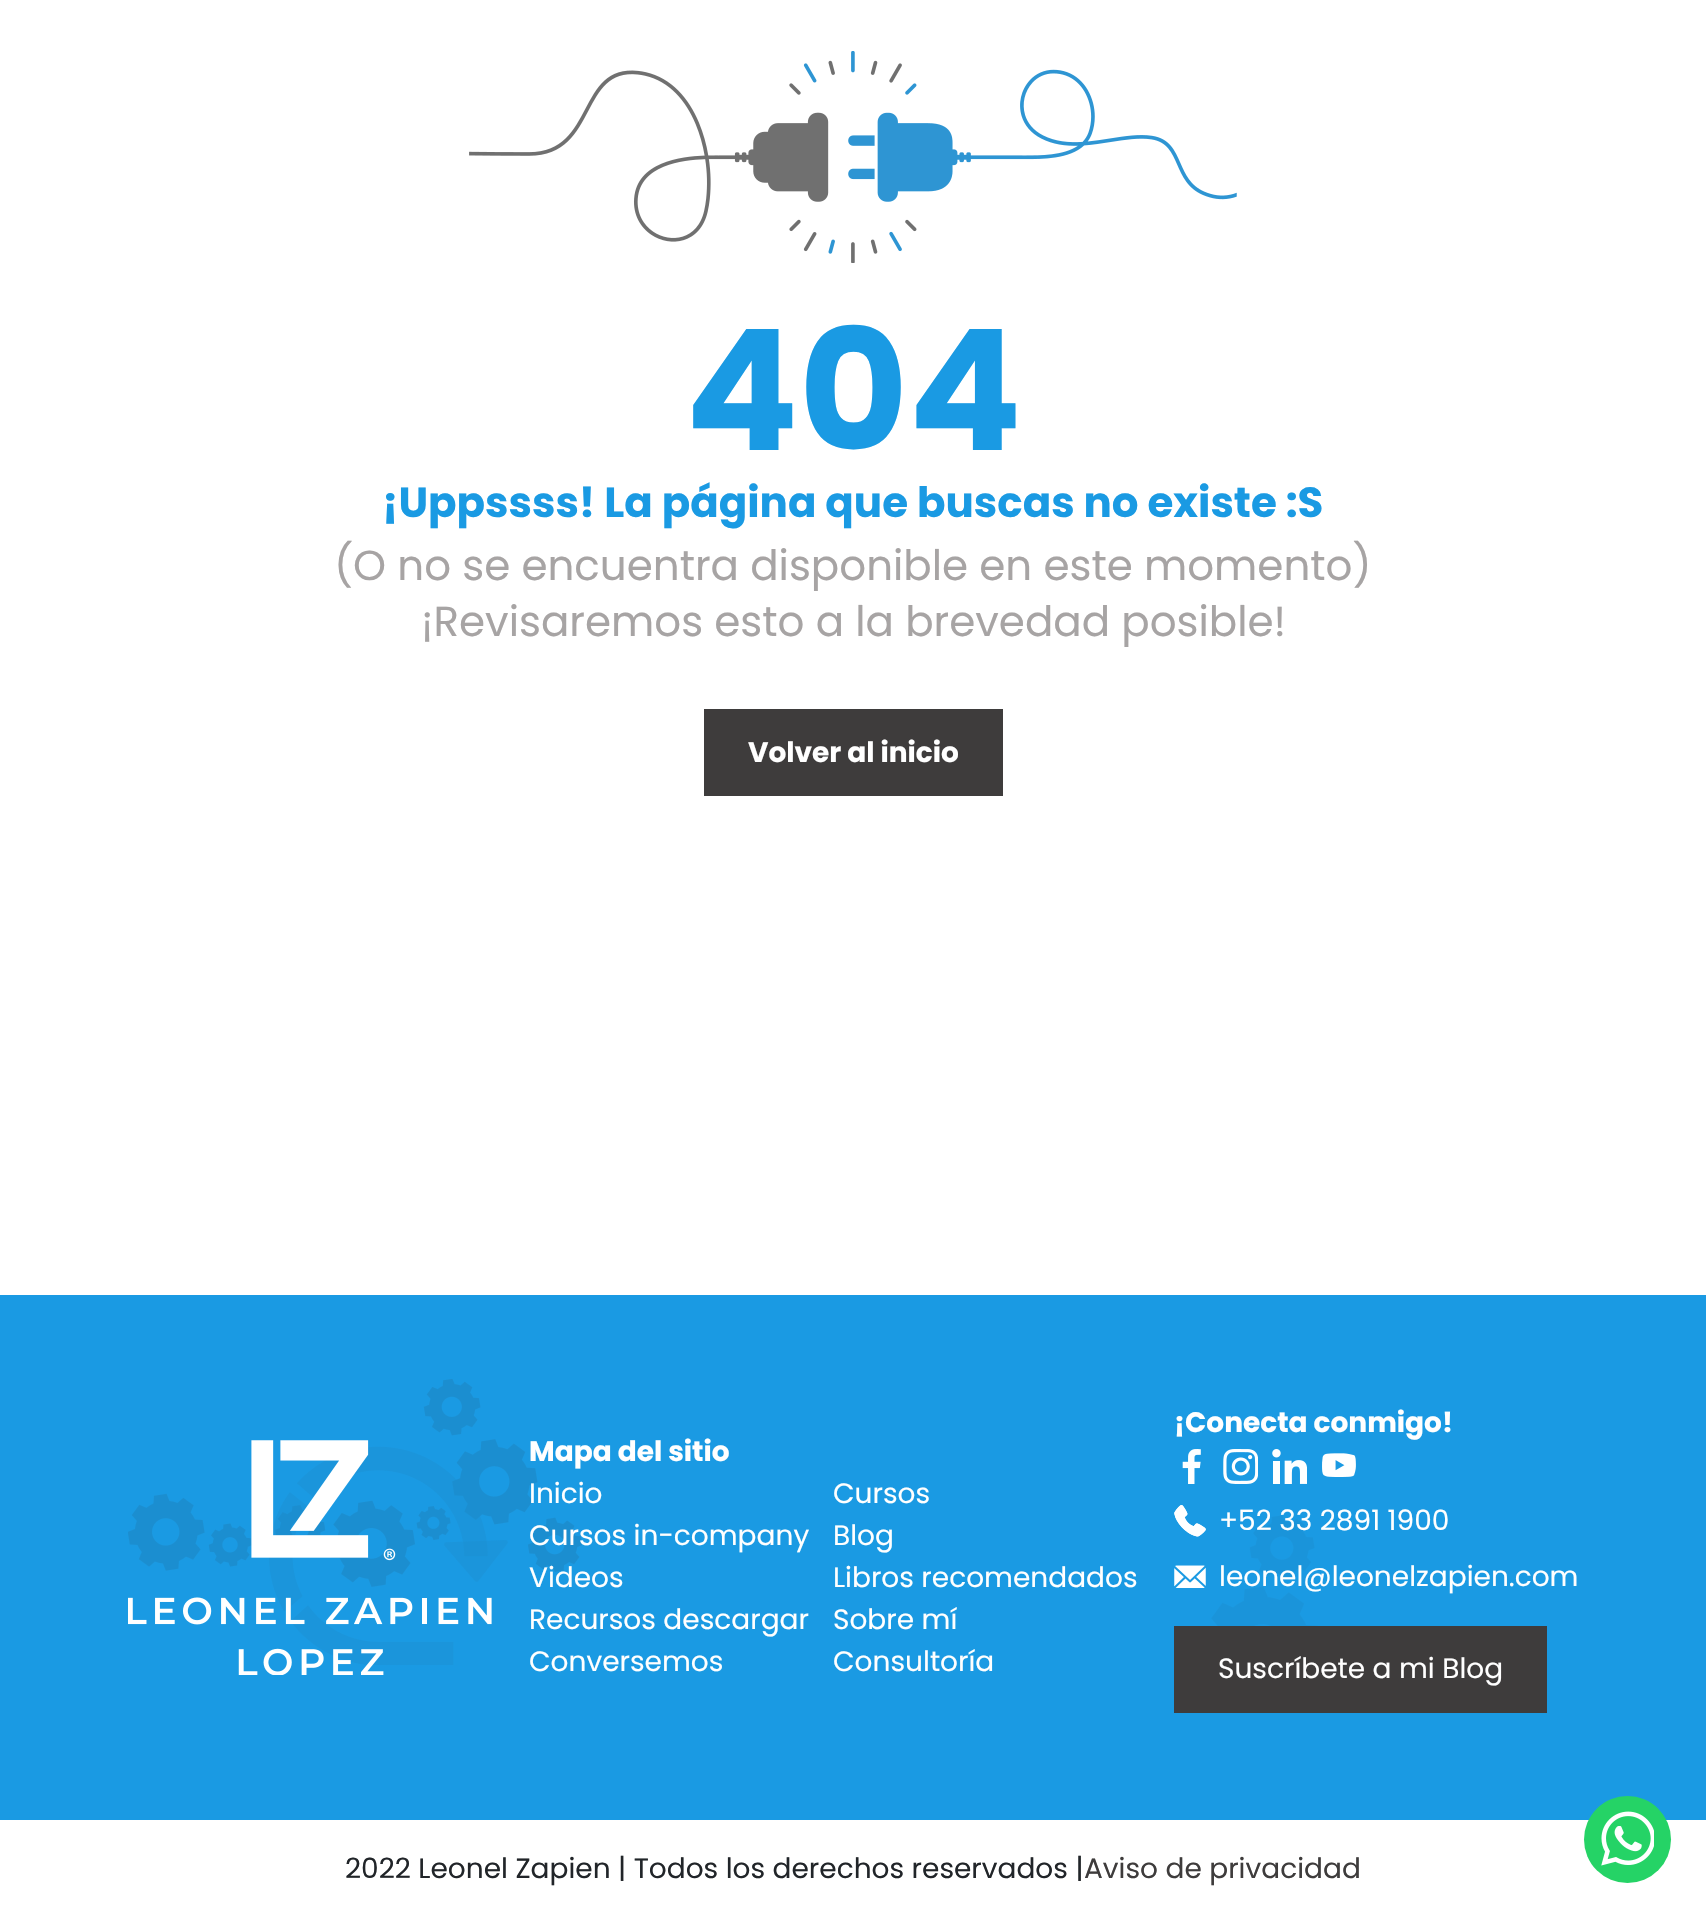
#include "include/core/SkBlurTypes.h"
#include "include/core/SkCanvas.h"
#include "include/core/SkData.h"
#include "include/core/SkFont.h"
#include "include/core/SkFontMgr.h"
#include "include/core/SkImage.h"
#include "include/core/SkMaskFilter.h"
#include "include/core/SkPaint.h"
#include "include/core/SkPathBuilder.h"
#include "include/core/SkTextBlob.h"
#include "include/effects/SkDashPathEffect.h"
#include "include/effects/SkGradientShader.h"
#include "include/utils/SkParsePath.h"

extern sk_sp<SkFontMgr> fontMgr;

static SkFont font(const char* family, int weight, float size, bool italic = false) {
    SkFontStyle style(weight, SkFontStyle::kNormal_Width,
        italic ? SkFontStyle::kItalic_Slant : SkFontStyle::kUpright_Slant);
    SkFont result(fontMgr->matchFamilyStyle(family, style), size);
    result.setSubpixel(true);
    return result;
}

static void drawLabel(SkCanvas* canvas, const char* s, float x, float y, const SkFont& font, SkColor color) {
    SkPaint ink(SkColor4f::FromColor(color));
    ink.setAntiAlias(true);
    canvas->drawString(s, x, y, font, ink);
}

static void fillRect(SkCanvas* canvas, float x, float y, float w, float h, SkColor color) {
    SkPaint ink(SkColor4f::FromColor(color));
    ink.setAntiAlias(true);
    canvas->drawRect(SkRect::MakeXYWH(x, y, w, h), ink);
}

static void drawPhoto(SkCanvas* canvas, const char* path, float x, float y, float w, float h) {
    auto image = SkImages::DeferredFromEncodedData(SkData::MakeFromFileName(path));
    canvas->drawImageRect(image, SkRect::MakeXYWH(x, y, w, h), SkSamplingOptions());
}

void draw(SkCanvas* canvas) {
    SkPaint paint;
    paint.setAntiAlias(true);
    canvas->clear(0xFFFFFFFF);
    drawPhoto(canvas, "assets/img1.png", 469, 51, 768, 212);
    SkFont font1 = font("Poppins", 700, 168);
    drawLabel(canvas, "404", 685, 450, font1, 0xFF1A9AE3);
    SkFont font2 = font("Poppins", 700, 42);
    drawLabel(canvas, "¡Uppssss! La página que buscas no existe :S", 382, 517, font2, 0xFF1A9AE3);
    SkFont font3 = font("Poppins", 400, 42);
    drawLabel(canvas, "(O no se encuentra disponible en este momento)", 334, 580, font3, 0xFFA7A4A4);
    drawLabel(canvas, "¡Revisaremos esto a la brevedad posible!", 421, 636, font3, 0xFFA7A4A4);
    fillRect(canvas, 704, 709, 299, 87, 0xFF3E3C3C);
    SkFont font4 = font("Poppins", 700, 28);
    drawLabel(canvas, "Volver al inicio", 748, 762, font4, 0xFFFFFFFF);
    fillRect(canvas, 0, 1295, 1706, 525, 0xFF1A9AE3);
    drawPhoto(canvas, "assets/img2.png", 128, 1379, 1190, 286);
    drawLabel(canvas, "¡Conecta conmigo!", 1174, 1432, font4, 0xFFFFFFFF);
    drawPhoto(canvas, "assets/img3.png", 1182, 1449, 19, 35);
    drawPhoto(canvas, "assets/img4.png", 1223, 1449, 35, 35);
    drawPhoto(canvas, "assets/img5.png", 1272, 1449, 35, 35);
    drawPhoto(canvas, "assets/img6.png", 1322, 1453, 34, 24);
    drawPhoto(canvas, "assets/img7.png", 1174, 1505, 32, 32);
    SkFont font5 = font("Poppins", 400, 28);
    drawLabel(canvas, "+52 33 2891 1900", 1219, 1530, font5, 0xFFFFFFFF);
    drawPhoto(canvas, "assets/img8.png", 1174, 1565, 32, 23);
    drawLabel(canvas, "leonel@leonelzapien.com", 1219, 1586, font5, 0xFFFFFFFF);
    fillRect(canvas, 1174, 1626, 373, 87, 0xFF3E3C3C);
    drawLabel(canvas, "Suscríbete a mi Blog", 1218, 1678, font5, 0xFFFFFFFF);
    drawPhoto(canvas, "assets/img9.png", 128, 1440, 364, 235);
    drawLabel(canvas, "Mapa del sitio", 529, 1461, font4, 0xFFFFFFFF);
    drawLabel(canvas, "Inicio", 529, 1503, font5, 0xFFFFFFFF);
    drawLabel(canvas, "Cursos", 833, 1503, font5, 0xFFFFFFFF);
    drawLabel(canvas, "Cursos in-company", 529, 1545, font5, 0xFFFFFFFF);
    drawLabel(canvas, "Blog", 833, 1545, font5, 0xFFFFFFFF);
    drawLabel(canvas, "Videos", 529, 1587, font5, 0xFFFFFFFF);
    drawLabel(canvas, "Libros recomendados", 833, 1587, font5, 0xFFFFFFFF);
    drawLabel(canvas, "Recursos descargar", 529, 1629, font5, 0xFFFFFFFF);
    drawLabel(canvas, "Sobre mí", 833, 1629, font5, 0xFFFFFFFF);
    drawLabel(canvas, "Conversemos", 529, 1671, font5, 0xFFFFFFFF);
    drawLabel(canvas, "Consultoría", 833, 1671, font5, 0xFFFFFFFF);
    drawLabel(canvas, "2022 Leonel Zapien | Todos los derechos reservados |", 345, 1878, font5, 0xFF212529);
    drawLabel(canvas, "Aviso de privacidad", 1084, 1878, font5, 0xFF3E3C3C);
    paint.setColor(0xFF25D366);
    canvas->drawCircle(1627.5f, 1839.5f, 43.5f, paint);
    drawPhoto(canvas, "assets/img10.png", 1601, 1811, 53, 55);
}
